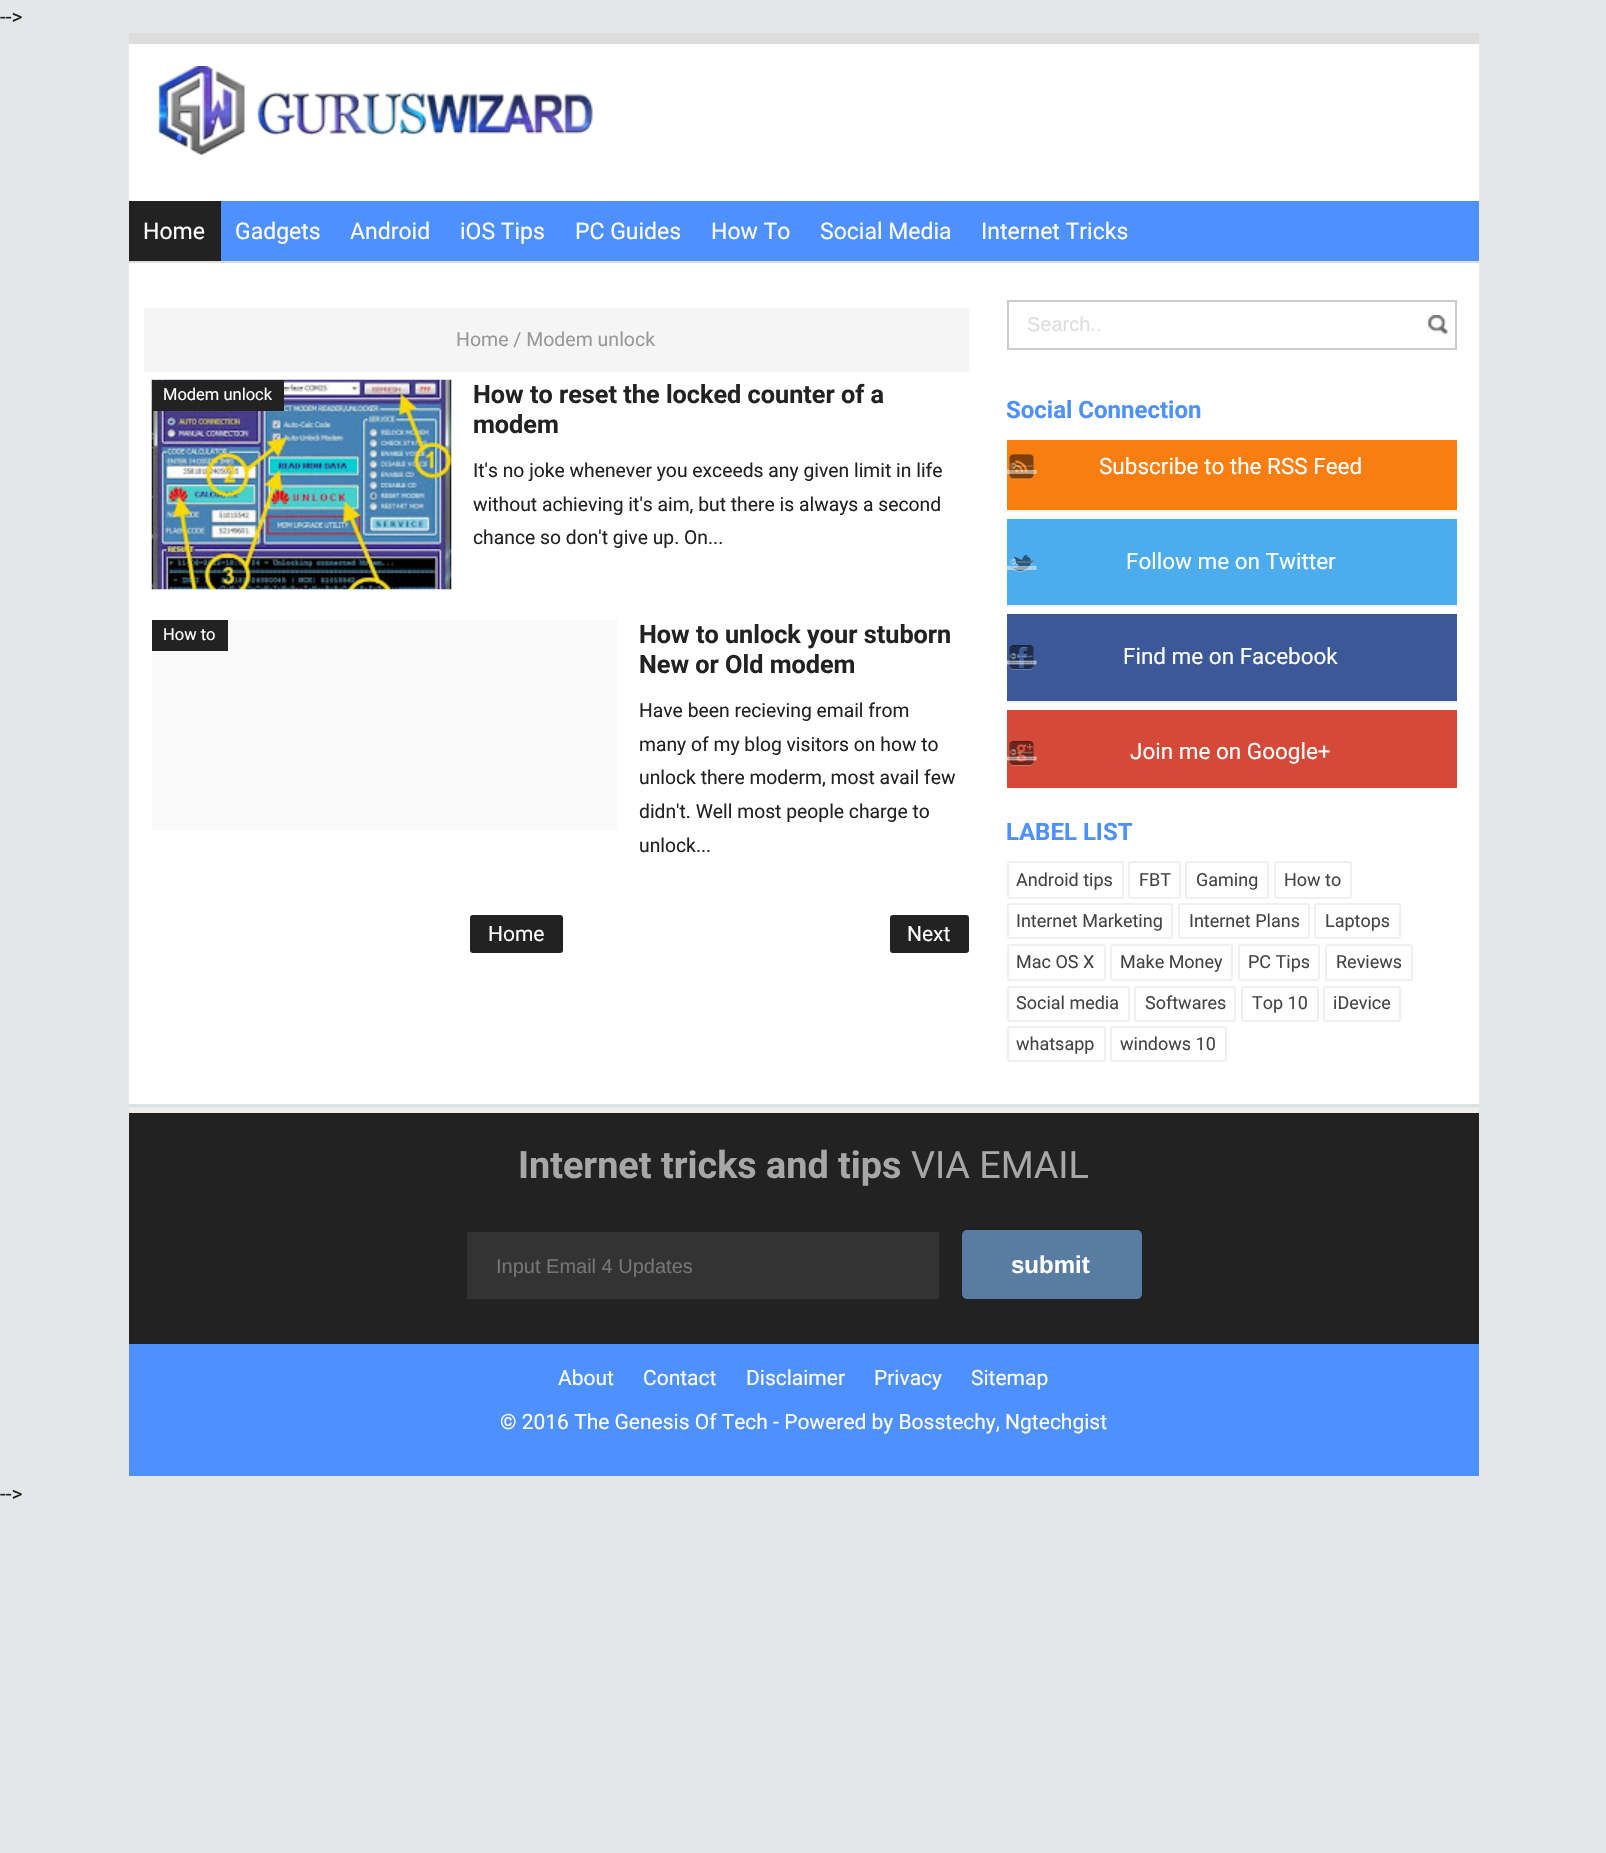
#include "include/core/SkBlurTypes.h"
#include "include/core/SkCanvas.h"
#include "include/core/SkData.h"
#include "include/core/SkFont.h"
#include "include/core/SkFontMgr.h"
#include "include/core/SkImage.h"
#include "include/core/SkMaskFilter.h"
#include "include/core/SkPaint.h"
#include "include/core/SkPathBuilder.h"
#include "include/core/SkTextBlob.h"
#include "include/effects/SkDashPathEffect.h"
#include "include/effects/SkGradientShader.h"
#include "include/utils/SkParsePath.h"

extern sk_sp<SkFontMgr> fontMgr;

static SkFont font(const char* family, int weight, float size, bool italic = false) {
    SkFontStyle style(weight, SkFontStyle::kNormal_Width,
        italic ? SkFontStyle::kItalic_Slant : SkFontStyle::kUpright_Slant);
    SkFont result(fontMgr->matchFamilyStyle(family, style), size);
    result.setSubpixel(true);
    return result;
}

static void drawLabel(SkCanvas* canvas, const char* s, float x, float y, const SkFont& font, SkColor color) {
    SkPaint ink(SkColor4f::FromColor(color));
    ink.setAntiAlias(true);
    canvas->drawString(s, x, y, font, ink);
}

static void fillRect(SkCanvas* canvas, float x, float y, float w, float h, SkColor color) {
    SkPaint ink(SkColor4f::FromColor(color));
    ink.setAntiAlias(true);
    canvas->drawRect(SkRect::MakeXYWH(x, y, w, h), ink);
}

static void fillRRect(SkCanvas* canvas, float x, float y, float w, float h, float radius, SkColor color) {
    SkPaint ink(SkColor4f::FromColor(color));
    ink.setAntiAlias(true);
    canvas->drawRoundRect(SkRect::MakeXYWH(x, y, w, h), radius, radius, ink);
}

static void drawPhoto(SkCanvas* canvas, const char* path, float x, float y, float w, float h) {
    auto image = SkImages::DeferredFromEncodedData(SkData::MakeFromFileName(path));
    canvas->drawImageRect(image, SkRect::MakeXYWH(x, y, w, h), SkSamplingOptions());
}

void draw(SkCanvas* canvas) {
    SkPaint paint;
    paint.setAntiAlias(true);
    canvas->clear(0xFFE3E7E8);
    SkFont font1 = font("Roboto", 400, 21);
    drawLabel(canvas, "-->", 0, 24, font1, 0xFF222222);
    fillRect(canvas, 129, 44, 1350, 1060, 0xFFFFFFFF);
    fillRect(canvas, 129, 33, 1350, 11, 0xFFDDDDDD);
    drawPhoto(canvas, "assets/img1.png", 158, 66, 435, 89);
    fillRect(canvas, 221, 201, 1258, 60, 0xFF4D90FE);
    fillRect(canvas, 129, 201, 92, 60, 0xFF222222);
    SkFont font2 = font("Roboto", 400, 23);
    drawLabel(canvas, "Home", 143, 239, font2, 0xFFFFFFFF);
    drawLabel(canvas, "Gadgets", 235, 239, font2, 0xFFFFFFFF);
    drawLabel(canvas, "Android", 350, 239, font2, 0xFFFFFFFF);
    drawLabel(canvas, "iOS Tips", 460, 239, font2, 0xFFFFFFFF);
    drawLabel(canvas, "PC Guides", 575, 239, font2, 0xFFFFFFFF);
    drawLabel(canvas, "How To", 711, 239, font2, 0xFFFFFFFF);
    drawLabel(canvas, "Social Media", 820, 239, font2, 0xFFFFFFFF);
    drawLabel(canvas, "Internet Tricks", 981, 239, font2, 0xFFFFFFFF);
    fillRect(canvas, 129, 1104, 1350, 2, 0xFFD9E4E6);
    fillRect(canvas, 129, 261, 1350, 2, 0xFFDDDDDD);
    fillRect(canvas, 144, 308, 825, 64, 0xFFF5F5F5);
    SkFont font3 = font("Roboto", 400, 19.5f);
    drawLabel(canvas, "Home / Modem unlock", 456, 346, font3, 0xFF999999);
    fillRect(canvas, 152, 380, 300, 210, 0xFFF9F9F9);
    drawPhoto(canvas, "assets/img2.png", 151, 379, 301, 211);
    SkFont font4 = font("Roboto", 700, 25.25f);
    drawLabel(canvas, "How to reset the locked counter of a", 473, 403, font4, 0xFF222222);
    drawLabel(canvas, "modem", 473, 433, font4, 0xFF222222);
    fillRect(canvas, 152, 380, 132, 31, 0xFF222222);
    SkFont font5 = font("Roboto", 400, 16.5f);
    drawLabel(canvas, "Modem unlock", 163, 400, font5, 0xFFFFFFFF);
    SkFont font6 = font("Roboto", 400, 19.3f);
    drawLabel(canvas, "It's no joke whenever you exceeds any given limit in life", 473, 477, font6, 0xFF222222);
    drawLabel(canvas, "without achieving it's aim, but there is always a second", 473, 511, font6, 0xFF222222);
    drawLabel(canvas, "chance so don't give up. On...", 473, 544, font6, 0xFF222222);
    fillRect(canvas, 152, 620, 465, 210, 0xFFF9F9F9);
    drawLabel(canvas, "How to unlock your stuborn", 639, 643, font4, 0xFF222222);
    drawLabel(canvas, "New or Old modem", 639, 673, font4, 0xFF222222);
    fillRect(canvas, 152, 620, 76, 31, 0xFF222222);
    drawLabel(canvas, "How to", 163, 640, font5, 0xFFFFFFFF);
    drawLabel(canvas, "Have been recieving email from", 639, 717, font6, 0xFF222222);
    drawLabel(canvas, "many of my blog visitors on how to", 639, 751, font6, 0xFF222222);
    drawLabel(canvas, "unlock there moderm, most avail few", 639, 784, font6, 0xFF222222);
    drawLabel(canvas, "didn't. Well most people charge to", 639, 818, font6, 0xFF222222);
    drawLabel(canvas, "unlock...", 639, 852, font6, 0xFF222222);
    fillRRect(canvas, 470, 915, 93, 38, 3, 0xFF222222);
    drawLabel(canvas, "Home", 488, 941, font1, 0xFFFFFFFF);
    fillRRect(canvas, 890, 915, 79, 38, 3, 0xFF222222);
    drawLabel(canvas, "Next", 907, 941, font1, 0xFFFFFFFF);
    paint.setStroke(true);
    paint.setStrokeWidth(2);
    paint.setColor(0xFFCCCCCC);
    canvas->drawRect(SkRect::MakeXYWH(1008, 301, 448, 48), paint);
    SkFont font7 = font("Liberation Sans", 400, 20);
    drawLabel(canvas, "Search..", 1027, 331, font7, 0xFFDDDDDD);
    drawPhoto(canvas, "assets/img3.png", 1426, 315, 22, 20);
    canvas->save();
    canvas->clipRect(SkRect::MakeXYWH(1007, 380, 450, 60));
    SkFont font8 = font("Roboto", 700, 24);
    drawLabel(canvas, "Social Connection", 1006, 418, font8, 0xFF4D90FE);
    canvas->restore();
    fillRect(canvas, 1007, 510, 450, 2, 0xFFF0F0F0);
    fillRect(canvas, 1007, 440, 450, 70, 0xFFF87E12);
    drawPhoto(canvas, "assets/img4.png", 1007, 454, 30, 26);
    SkFont font9 = font("Roboto", 400, 22.5f);
    drawLabel(canvas, "Subscribe to the RSS Feed", 1099, 474, font9, 0xFFFFFFFF);
    fillRect(canvas, 1007, 605, 450, 2, 0xFFF0F0F0);
    fillRect(canvas, 1007, 519, 450, 86, 0xFF4CACEE);
    drawPhoto(canvas, "assets/img5.png", 1007, 555, 30, 17);
    drawLabel(canvas, "Follow me on Twitter", 1126, 569, font9, 0xFFFFFFFF);
    fillRect(canvas, 1007, 701, 450, 2, 0xFFF0F0F0);
    fillRect(canvas, 1007, 614, 450, 87, 0xFF3B5998);
    drawPhoto(canvas, "assets/img6.png", 1007, 645, 30, 25);
    drawLabel(canvas, "Find me on Facebook", 1123, 664, font9, 0xFFFFFFFF);
    fillRect(canvas, 1007, 710, 450, 78, 0xFFD44937);
    drawPhoto(canvas, "assets/img7.png", 1007, 741, 30, 25);
    drawLabel(canvas, "Join me on Google+", 1130, 759, font9, 0xFFFFFFFF);
    drawLabel(canvas, "LABEL LIST", 1006, 840, font8, 0xFF4D90FE);
    paint.setColor(0xFFF0F0F0);
    canvas->drawRoundRect(SkRect::MakeXYWH(1008, 862, 115, 36), 2, 2, paint);
    SkFont font10 = font("Roboto", 400, 18);
    drawLabel(canvas, "Android tips", 1016, 886, font10, 0xFF444444);
    canvas->drawRoundRect(SkRect::MakeXYWH(1129, 862, 51, 36), 2, 2, paint);
    drawLabel(canvas, "FBT", 1139, 886, font10, 0xFF444444);
    canvas->drawRoundRect(SkRect::MakeXYWH(1186, 862, 82, 36), 2, 2, paint);
    drawLabel(canvas, "Gaming", 1196, 886, font10, 0xFF444444);
    canvas->drawRoundRect(SkRect::MakeXYWH(1275, 862, 76, 36), 2, 2, paint);
    drawLabel(canvas, "How to", 1284, 886, font10, 0xFF444444);
    canvas->drawRoundRect(SkRect::MakeXYWH(1008, 904, 164, 34), 2, 2, paint);
    drawLabel(canvas, "Internet Marketing", 1016, 927, font10, 0xFF444444);
    canvas->drawRoundRect(SkRect::MakeXYWH(1179, 904, 130, 34), 2, 2, paint);
    drawLabel(canvas, "Internet Plans", 1189, 927, font10, 0xFF444444);
    canvas->drawRoundRect(SkRect::MakeXYWH(1315, 904, 85, 34), 2, 2, paint);
    drawLabel(canvas, "Laptops", 1325, 927, font10, 0xFF444444);
    canvas->drawRoundRect(SkRect::MakeXYWH(1008, 945, 97, 35), 2, 2, paint);
    drawLabel(canvas, "Mac OS X", 1016, 968, font10, 0xFF444444);
    canvas->drawRoundRect(SkRect::MakeXYWH(1111, 945, 121, 35), 2, 2, paint);
    drawLabel(canvas, "Make Money", 1120, 968, font10, 0xFF444444);
    canvas->drawRoundRect(SkRect::MakeXYWH(1239, 945, 80, 35), 2, 2, paint);
    drawLabel(canvas, "PC Tips", 1248, 968, font10, 0xFF444444);
    canvas->drawRoundRect(SkRect::MakeXYWH(1326, 945, 86, 35), 2, 2, paint);
    drawLabel(canvas, "Reviews", 1336, 968, font10, 0xFF444444);
    canvas->drawRoundRect(SkRect::MakeXYWH(1008, 987, 121, 34), 2, 2, paint);
    drawLabel(canvas, "Social media", 1016, 1009, font10, 0xFF444444);
    canvas->drawRoundRect(SkRect::MakeXYWH(1135, 987, 100, 34), 2, 2, paint);
    drawLabel(canvas, "Softwares", 1145, 1009, font10, 0xFF444444);
    canvas->drawRoundRect(SkRect::MakeXYWH(1242, 987, 76, 34), 2, 2, paint);
    drawLabel(canvas, "Top 10", 1252, 1009, font10, 0xFF444444);
    canvas->drawRoundRect(SkRect::MakeXYWH(1324, 987, 76, 34), 2, 2, paint);
    drawLabel(canvas, "iDevice", 1333, 1009, font10, 0xFF444444);
    canvas->drawRoundRect(SkRect::MakeXYWH(1008, 1027, 97, 34), 2, 2, paint);
    drawLabel(canvas, "whatsapp", 1016, 1050, font10, 0xFF444444);
    canvas->drawRoundRect(SkRect::MakeXYWH(1111, 1027, 115, 34), 2, 2, paint);
    drawLabel(canvas, "windows 10", 1120, 1050, font10, 0xFF444444);
    fillRect(canvas, 129, 1106, 1350, 1, 0xFFDDDDDD);
    fillRect(canvas, 129, 1113, 1350, 231, 0xFF222222);
    fillRect(canvas, 129, 1107, 1350, 6, 0xFFEEEEEE);
    SkFont font11 = font("Roboto", 700, 37.75f);
    drawLabel(canvas, "Internet tricks and tips", 518, 1178, font11, 0xFFA7A7A7);
    SkFont font12 = font("Roboto", 400, 37.75f);
    drawLabel(canvas, "VIA EMAIL", 911, 1178, font12, 0xFFA7A7A7);
    fillRect(canvas, 467, 1232, 472, 67, 0xFF333333);
    canvas->save();
    canvas->clipRect(SkRect::MakeXYWH(497, 1254, 412, 23));
    drawLabel(canvas, "Input Email 4 Updates", 496, 1273, font7, 0xFF757575);
    canvas->restore();
    fillRRect(canvas, 962, 1230, 180, 69, 5, 0xFF587CA2);
    SkFont font13 = font("Liberation Sans", 700, 24);
    drawLabel(canvas, "submit", 1011, 1273, font13, 0xFFFFFFFF);
    fillRect(canvas, 129, 1344, 1350, 132, 0xFF4D90FE);
    drawLabel(canvas, "About", 558, 1385, font1, 0xFFFFFFFF);
    drawLabel(canvas, "Contact", 643, 1385, font1, 0xFFFFFFFF);
    drawLabel(canvas, "Disclaimer", 746, 1385, font1, 0xFFFFFFFF);
    drawLabel(canvas, "Privacy", 874, 1385, font1, 0xFFFFFFFF);
    drawLabel(canvas, "Sitemap", 971, 1385, font1, 0xFFFFFFFF);
    drawLabel(canvas, "© 2016 The Genesis Of Tech - Powered by Bosstechy, Ngtechgist", 500, 1429, font1, 0xFFFFFFFF);
    drawLabel(canvas, "-->", 0, 1501, font1, 0xFF222222);
}
